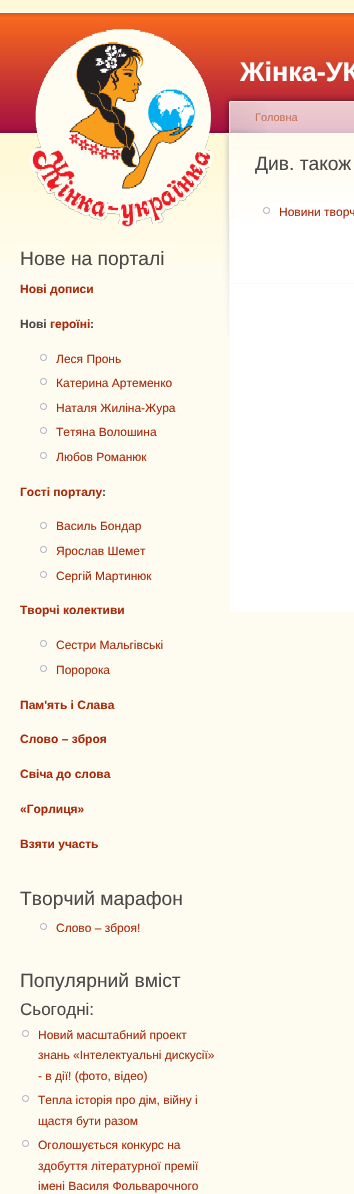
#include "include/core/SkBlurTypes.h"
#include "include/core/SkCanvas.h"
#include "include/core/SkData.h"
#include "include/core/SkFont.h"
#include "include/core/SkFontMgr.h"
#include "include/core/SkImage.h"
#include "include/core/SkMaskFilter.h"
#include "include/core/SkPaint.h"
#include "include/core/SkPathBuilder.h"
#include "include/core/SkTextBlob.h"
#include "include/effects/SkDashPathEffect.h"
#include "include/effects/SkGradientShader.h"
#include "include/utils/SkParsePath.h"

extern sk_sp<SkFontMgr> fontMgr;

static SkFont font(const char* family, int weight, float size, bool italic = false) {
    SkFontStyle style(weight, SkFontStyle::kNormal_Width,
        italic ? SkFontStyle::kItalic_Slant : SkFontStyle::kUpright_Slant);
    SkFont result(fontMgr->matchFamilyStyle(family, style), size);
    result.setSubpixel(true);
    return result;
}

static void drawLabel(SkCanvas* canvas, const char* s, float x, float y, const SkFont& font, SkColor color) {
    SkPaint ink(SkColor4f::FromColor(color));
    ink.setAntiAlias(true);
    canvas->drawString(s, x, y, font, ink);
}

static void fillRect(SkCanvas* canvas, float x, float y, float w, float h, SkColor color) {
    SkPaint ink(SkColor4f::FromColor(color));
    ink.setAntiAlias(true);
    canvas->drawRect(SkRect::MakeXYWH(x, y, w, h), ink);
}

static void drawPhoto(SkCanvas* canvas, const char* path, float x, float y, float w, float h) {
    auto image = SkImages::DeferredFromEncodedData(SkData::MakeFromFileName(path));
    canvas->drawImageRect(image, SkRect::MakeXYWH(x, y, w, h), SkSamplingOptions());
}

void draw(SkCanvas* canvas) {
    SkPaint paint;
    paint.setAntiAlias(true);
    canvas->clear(0xFFFEFCF1);
    fillRect(canvas, 0, 0, 354, 1, 0xFFFFFADD);
    fillRect(canvas, 0, 1, 354, 11, 0xFFFFF9D8);
    drawPhoto(canvas, "assets/img1.png", 0, 12, 354, 251);
    drawPhoto(canvas, "assets/img2.png", 29, 29, 185, 201);
    SkFont font1 = font("Liberation Sans", 700, 27);
    drawLabel(canvas, "Жінка-УК", 240, 81, font1, 0xFFFFFFFF);
    fillRect(canvas, 230, 204, 124, 408, 0xFFFFFFFF);
    drawPhoto(canvas, "assets/img3.png", 230, 92, 124, 112);
    drawPhoto(canvas, "assets/img4.png", 223, 96, 44, 241);
    SkFont font2 = font("Liberation Sans", 400, 11);
    drawLabel(canvas, "Головна", 255, 121, font2, 0xFFC17357);
    SkFont font3 = font("Liberation Sans", 400, 19.25f);
    drawLabel(canvas, "Див. також", 255, 170, font3, 0xFF494949);
    fillRect(canvas, 229, 283, 125, 1, 0xFFFCFAEC);
    drawPhoto(canvas, "assets/img5.png", 263, 207, 7, 7);
    SkFont font4 = font("Liberation Sans", 400, 12);
    drawLabel(canvas, "Новини творч", 279, 216, font4, 0xFFA9290A);
    drawLabel(canvas, "Нове на порталі", 20, 265, font3, 0xFF494949);
    SkFont font5 = font("Liberation Sans", 700, 12);
    drawLabel(canvas, "Нові дописи", 20, 293, font5, 0xFFA9290A);
    drawLabel(canvas, "Нові", 20, 328, font5, 0xFF494949);
    drawLabel(canvas, "героїні", 50, 328, font5, 0xFFA9290A);
    drawLabel(canvas, ":", 90, 328, font5, 0xFF494949);
    drawPhoto(canvas, "assets/img6.png", 40, 354, 7, 7);
    drawLabel(canvas, "Леся Пронь", 56, 363, font4, 0xFFA9290A);
    drawPhoto(canvas, "assets/img6.png", 40, 378, 7, 7);
    drawLabel(canvas, "Катерина Артеменко", 56, 387, font4, 0xFFA9290A);
    drawPhoto(canvas, "assets/img6.png", 40, 403, 7, 7);
    drawLabel(canvas, "Наталя Жиліна-Жура", 56, 412, font4, 0xFFA9290A);
    drawPhoto(canvas, "assets/img6.png", 40, 427, 7, 7);
    drawLabel(canvas, "Тетяна Волошина", 56, 436, font4, 0xFFA9290A);
    drawPhoto(canvas, "assets/img6.png", 40, 452, 7, 7);
    drawLabel(canvas, "Любов Романюк", 56, 461, font4, 0xFFA9290A);
    drawLabel(canvas, "Гості порталу", 20, 496, font5, 0xFFA9290A);
    drawLabel(canvas, ":", 102, 496, font5, 0xFF494949);
    drawPhoto(canvas, "assets/img6.png", 40, 522, 7, 7);
    drawLabel(canvas, "Василь Бондар", 56, 530, font4, 0xFFA9290A);
    drawPhoto(canvas, "assets/img6.png", 40, 546, 7, 7);
    drawLabel(canvas, "Ярослав Шемет", 56, 555, font4, 0xFFA9290A);
    drawPhoto(canvas, "assets/img6.png", 40, 571, 7, 7);
    drawLabel(canvas, "Сергій Мартинюк", 56, 580, font4, 0xFFA9290A);
    drawLabel(canvas, "Творчі колективи", 20, 614, font5, 0xFFA9290A);
    drawPhoto(canvas, "assets/img6.png", 40, 640, 7, 7);
    drawLabel(canvas, "Сестри Мальгівські", 56, 649, font4, 0xFFA9290A);
    drawPhoto(canvas, "assets/img6.png", 40, 665, 7, 7);
    drawLabel(canvas, "Поророка", 56, 674, font4, 0xFFA9290A);
    drawLabel(canvas, "Пам'ять і Слава", 20, 709, font5, 0xFFA9290A);
    drawLabel(canvas, "Слово – зброя", 20, 743, font5, 0xFFA9290A);
    drawLabel(canvas, "Свіча до слова", 20, 778, font5, 0xFFA9290A);
    drawLabel(canvas, "«Горлиця»", 20, 813, font5, 0xFFA9290A);
    drawLabel(canvas, "Взяти участь", 20, 848, font5, 0xFFA9290A);
    drawLabel(canvas, "Творчий марафон", 20, 905, font3, 0xFF494949);
    drawPhoto(canvas, "assets/img6.png", 40, 923, 7, 7);
    drawLabel(canvas, "Слово – зброя!", 56, 932, font4, 0xFFA9290A);
    drawLabel(canvas, "Популярний вміст", 20, 987, font3, 0xFF494949);
    SkFont font6 = font("Liberation Sans", 400, 17);
    drawLabel(canvas, "Сьогодні:", 20, 1015, font6, 0xFF494949);
    drawPhoto(canvas, "assets/img6.png", 22, 1030, 7, 7);
    drawLabel(canvas, "Новий масштабний проект", 38, 1039, font4, 0xFFA9290A);
    drawLabel(canvas, "знань «Інтелектуальні дискусії»", 38, 1059, font4, 0xFFA9290A);
    drawLabel(canvas, "- в дії! (фото, відео)", 38, 1080, font4, 0xFFA9290A);
    drawPhoto(canvas, "assets/img6.png", 22, 1095, 7, 7);
    drawLabel(canvas, "Тепла історія про дім, війну і", 38, 1104, font4, 0xFFA9290A);
    drawLabel(canvas, "щастя бути разом", 38, 1125, font4, 0xFFA9290A);
    drawPhoto(canvas, "assets/img6.png", 22, 1140, 7, 7);
    drawLabel(canvas, "Оголошується конкурс на", 38, 1149, font4, 0xFFA9290A);
    drawLabel(canvas, "здобуття літературної премії", 38, 1170, font4, 0xFFA9290A);
    drawLabel(canvas, "імені Василя Фольварочного", 38, 1190, font4, 0xFFA9290A);
}
